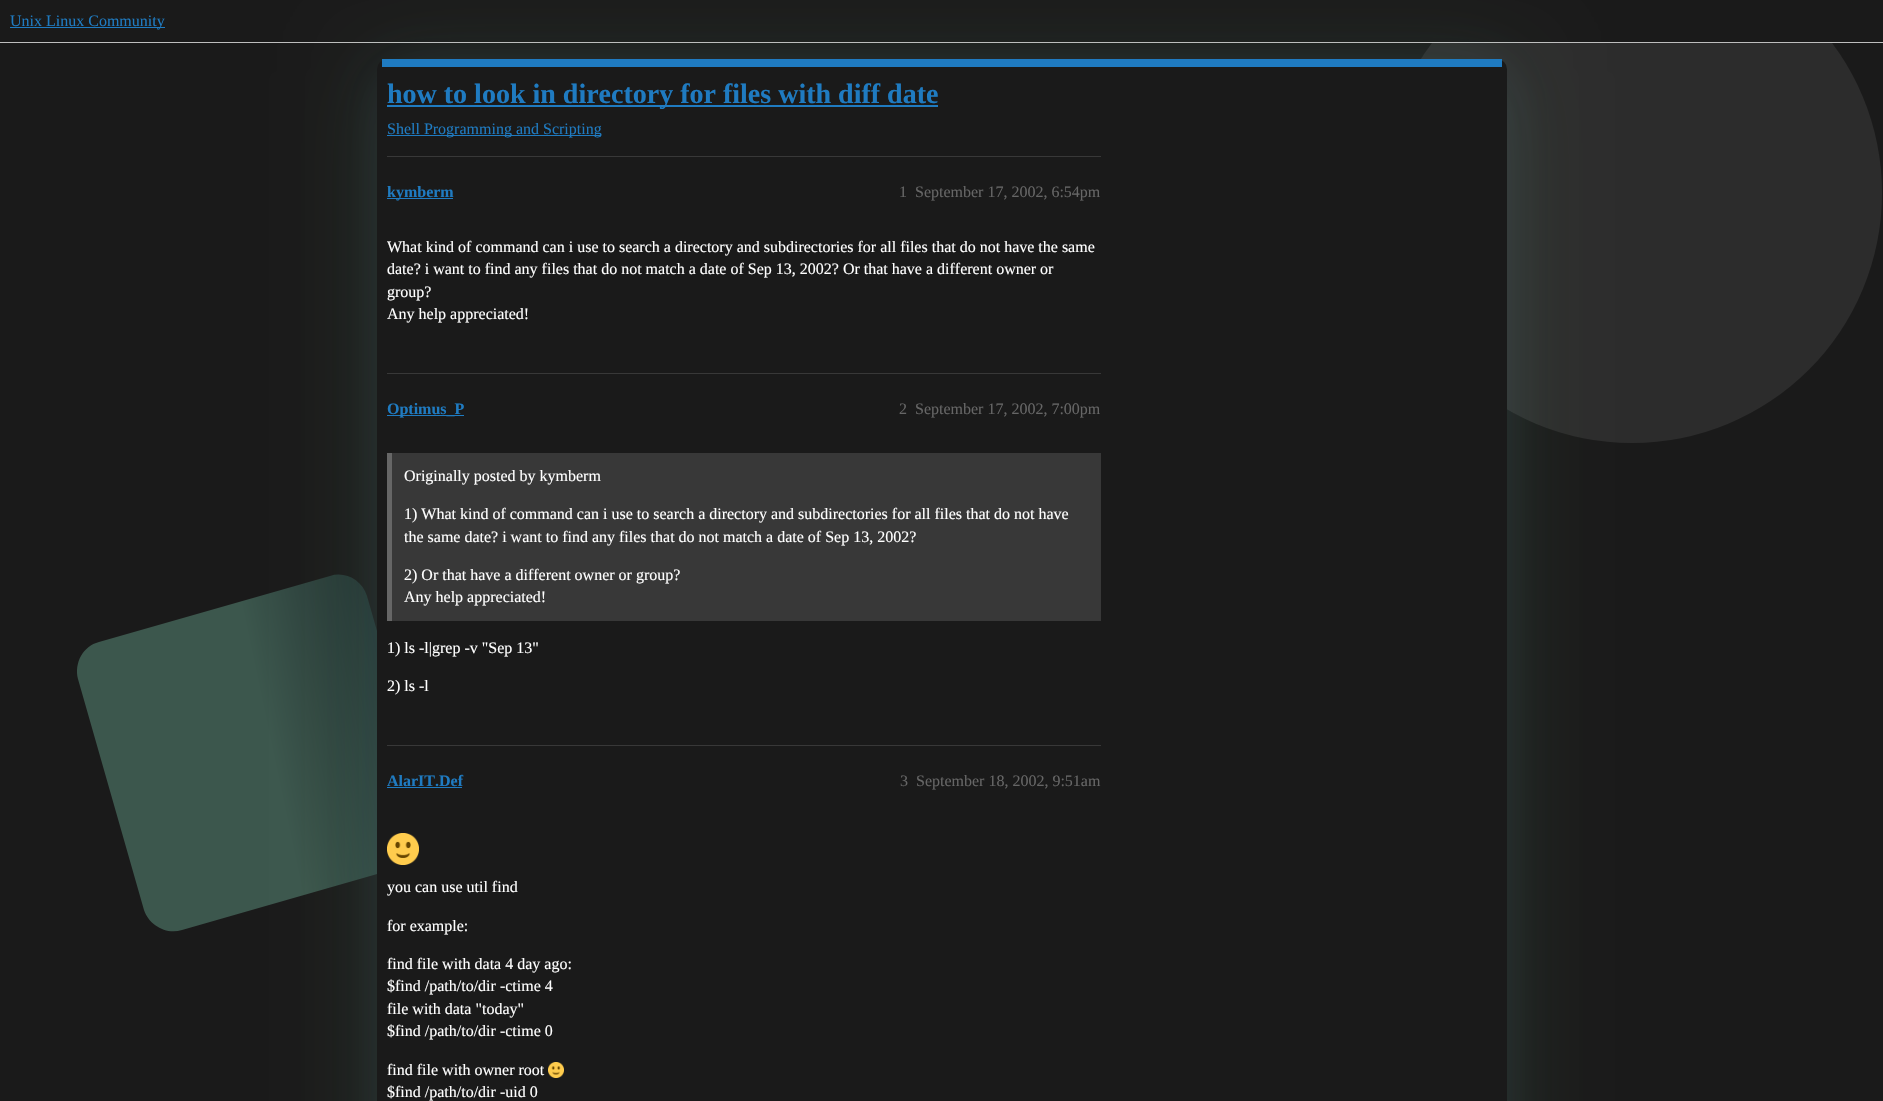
#include "include/core/SkBlurTypes.h"
#include "include/core/SkCanvas.h"
#include "include/core/SkData.h"
#include "include/core/SkFont.h"
#include "include/core/SkFontMgr.h"
#include "include/core/SkImage.h"
#include "include/core/SkMaskFilter.h"
#include "include/core/SkPaint.h"
#include "include/core/SkPathBuilder.h"
#include "include/core/SkTextBlob.h"
#include "include/effects/SkDashPathEffect.h"
#include "include/effects/SkGradientShader.h"
#include "include/utils/SkParsePath.h"

extern sk_sp<SkFontMgr> fontMgr;

static SkFont font(const char* family, int weight, float size, bool italic = false) {
    SkFontStyle style(weight, SkFontStyle::kNormal_Width,
        italic ? SkFontStyle::kItalic_Slant : SkFontStyle::kUpright_Slant);
    SkFont result(fontMgr->matchFamilyStyle(family, style), size);
    result.setSubpixel(true);
    return result;
}

static void drawLabel(SkCanvas* canvas, const char* s, float x, float y, const SkFont& font, SkColor color) {
    SkPaint ink(SkColor4f::FromColor(color));
    ink.setAntiAlias(true);
    canvas->drawString(s, x, y, font, ink);
}

static void fillRect(SkCanvas* canvas, float x, float y, float w, float h, SkColor color) {
    SkPaint ink(SkColor4f::FromColor(color));
    ink.setAntiAlias(true);
    canvas->drawRect(SkRect::MakeXYWH(x, y, w, h), ink);
}

static void fillRRect(SkCanvas* canvas, float x, float y, float w, float h, float radius, SkColor color) {
    SkPaint ink(SkColor4f::FromColor(color));
    ink.setAntiAlias(true);
    canvas->drawRoundRect(SkRect::MakeXYWH(x, y, w, h), radius, radius, ink);
}

static void drawPhoto(SkCanvas* canvas, const char* path, float x, float y, float w, float h) {
    auto image = SkImages::DeferredFromEncodedData(SkData::MakeFromFileName(path));
    canvas->drawImageRect(image, SkRect::MakeXYWH(x, y, w, h), SkSamplingOptions());
}

static SkPath parsePath(const char* data, bool evenOdd = false) {
    SkPath result = *SkParsePath::FromSVGString(data);
    if (evenOdd) result.setFillType(SkPathFillType::kEvenOdd);
    return result;
}

void draw(SkCanvas* canvas) {
    SkPaint paint;
    paint.setAntiAlias(true);
    canvas->clear(0xFF1A1A1A);
    paint.setColor(0xFF2C2C2C);
    canvas->drawCircle(1632, 193, 250, paint);
    fillRect(canvas, 1433, 0, 398, 42, 0xFF1A1A1A);
    fillRect(canvas, 0, 42, 1883, 1, 0xFFBEBEBE);
    fillRect(canvas, 10, 27, 155, 1, 0xFF1F7BC1);
    SkFont font1 = font("Liberation Serif", 400, 16);
    drawLabel(canvas, "Unix Linux Community", 10, 26, font1, 0xFF1F7BC1);
    {
        const SkColor colors[] = {0xFF3C574D, 0xFF1E2C2C};
        const float stops[] = {0.55f, 1};
        const SkPoint ends[] = {{99, 786}, {412, 720}};
        paint.setShader(SkGradientShader::MakeLinear(ends, colors, stops, 2, SkTileMode::kClamp));
        paint.setAlpha(255);
    }
    canvas->drawPath(parsePath("M367 596L433 827C437 843 428 859 412 864L182 930C166 935 149 925 144 910L78 679C74 663 83 646 99 642L330 576C345 571 362 580 367 596Z"), paint);
    paint.setShader(nullptr);
    paint.setColor(0x1A85FF67);
    paint.setMaskFilter(SkMaskFilter::MakeBlur(kNormal_SkBlurStyle, 45));
    canvas->drawRoundRect(SkRect::MakeXYWH(377, 71, 1130, 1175), 10, 10, paint);
    paint.setMaskFilter(nullptr);
    paint.setColor(0x1A6797FF);
    paint.setMaskFilter(SkMaskFilter::MakeBlur(kNormal_SkBlurStyle, 30));
    canvas->drawRoundRect(SkRect::MakeXYWH(377, 67, 1130, 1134), 10, 10, paint);
    paint.setMaskFilter(nullptr);
    fillRRect(canvas, 377, 59, 1130, 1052, 10, 0xFF1A1A1A);
    fillRect(canvas, 382, 59, 1120, 8, 0xFF1F7BC1);
    fillRect(canvas, 387, 105, 551, 2, 0xFF1F7BC1);
    SkFont font2 = font("Liberation Serif", 700, 28);
    drawLabel(canvas, "how to look in directory for files with diff date", 387, 103, font2, 0xFF1F7BC1);
    fillRect(canvas, 387, 135, 214, 1, 0xFF1F7BC1);
    drawLabel(canvas, "Shell Programming and Scripting", 387, 134, font1, 0xFF1F7BC1);
    fillRect(canvas, 387, 156, 714, 1, 0xFF383838);
    fillRect(canvas, 387, 198, 66, 1, 0xFF1F7BC1);
    SkFont font3 = font("Liberation Serif", 700, 16);
    drawLabel(canvas, "kymberm", 387, 197, font3, 0xFF1F7BC1);
    drawLabel(canvas, "1", 899, 197, font1, 0xFF666666);
    drawLabel(canvas, "September 17, 2002, 6:54pm", 915, 197, font1, 0xFF666666);
    drawLabel(canvas, "What kind of command can i use to search a directory and subdirectories for all files that do not have the same", 387, 252, font1, 0xFFFFFFFF);
    drawLabel(canvas, "date? i want to find any files that do not match a date of Sep 13, 2002? Or that have a different owner or", 387, 274, font1, 0xFFFFFFFF);
    drawLabel(canvas, "group?", 387, 297, font1, 0xFFFFFFFF);
    drawLabel(canvas, "Any help appreciated!", 387, 319, font1, 0xFFFFFFFF);
    fillRect(canvas, 387, 373, 714, 1, 0xFF383838);
    fillRect(canvas, 387, 415, 77, 1, 0xFF1F7BC1);
    drawLabel(canvas, "Optimus_P", 387, 414, font3, 0xFF1F7BC1);
    drawLabel(canvas, "2", 899, 414, font1, 0xFF666666);
    drawLabel(canvas, "September 17, 2002, 7:00pm", 915, 414, font1, 0xFF666666);
    fillRect(canvas, 392, 453, 709, 168, 0xFF383838);
    fillRect(canvas, 387, 453, 5, 168, 0xFF666666);
    drawLabel(canvas, "Originally posted by kymberm", 404, 481, font1, 0xFFFFFFFF);
    drawLabel(canvas, "1) What kind of command can i use to search a directory and subdirectories for all files that do not have", 404, 519, font1, 0xFFFFFFFF);
    drawLabel(canvas, "the same date? i want to find any files that do not match a date of Sep 13, 2002?", 404, 542, font1, 0xFFFFFFFF);
    drawLabel(canvas, "2) Or that have a different owner or group?", 404, 580, font1, 0xFFFFFFFF);
    drawLabel(canvas, "Any help appreciated!", 404, 602, font1, 0xFFFFFFFF);
    drawLabel(canvas, "1) ls -l|grep -v \"Sep 13\"", 387, 653, font1, 0xFFFFFFFF);
    drawLabel(canvas, "2) ls -l", 387, 691, font1, 0xFFFFFFFF);
    fillRect(canvas, 387, 745, 714, 1, 0xFF383838);
    drawLabel(canvas, "AlarIT.Def", 387, 786, font3, 0xFF1F7BC1);
    fillRect(canvas, 387, 787, 75, 1, 0xFF1F7BC1);
    drawLabel(canvas, "3", 900, 786, font1, 0xFF666666);
    drawLabel(canvas, "September 18, 2002, 9:51am", 916, 786, font1, 0xFF666666);
    drawPhoto(canvas, "assets/img1.png", 387, 833, 32, 32);
    drawLabel(canvas, "you can use util find", 387, 892, font1, 0xFFFFFFFF);
    drawLabel(canvas, "for example:", 387, 931, font1, 0xFFFFFFFF);
    drawLabel(canvas, "find file with data 4 day ago:", 387, 969, font1, 0xFFFFFFFF);
    drawLabel(canvas, "$find /path/to/dir -ctime 4", 387, 991, font1, 0xFFFFFFFF);
    drawLabel(canvas, "file with data \"today\"", 387, 1014, font1, 0xFFFFFFFF);
    drawLabel(canvas, "$find /path/to/dir -ctime 0", 387, 1036, font1, 0xFFFFFFFF);
    drawLabel(canvas, "find file with owner root", 387, 1075, font1, 0xFFFFFFFF);
    drawPhoto(canvas, "assets/img2.png", 548, 1062, 16, 16);
    drawLabel(canvas, "$find /path/to/dir -uid 0", 387, 1097, font1, 0xFFFFFFFF);
}
